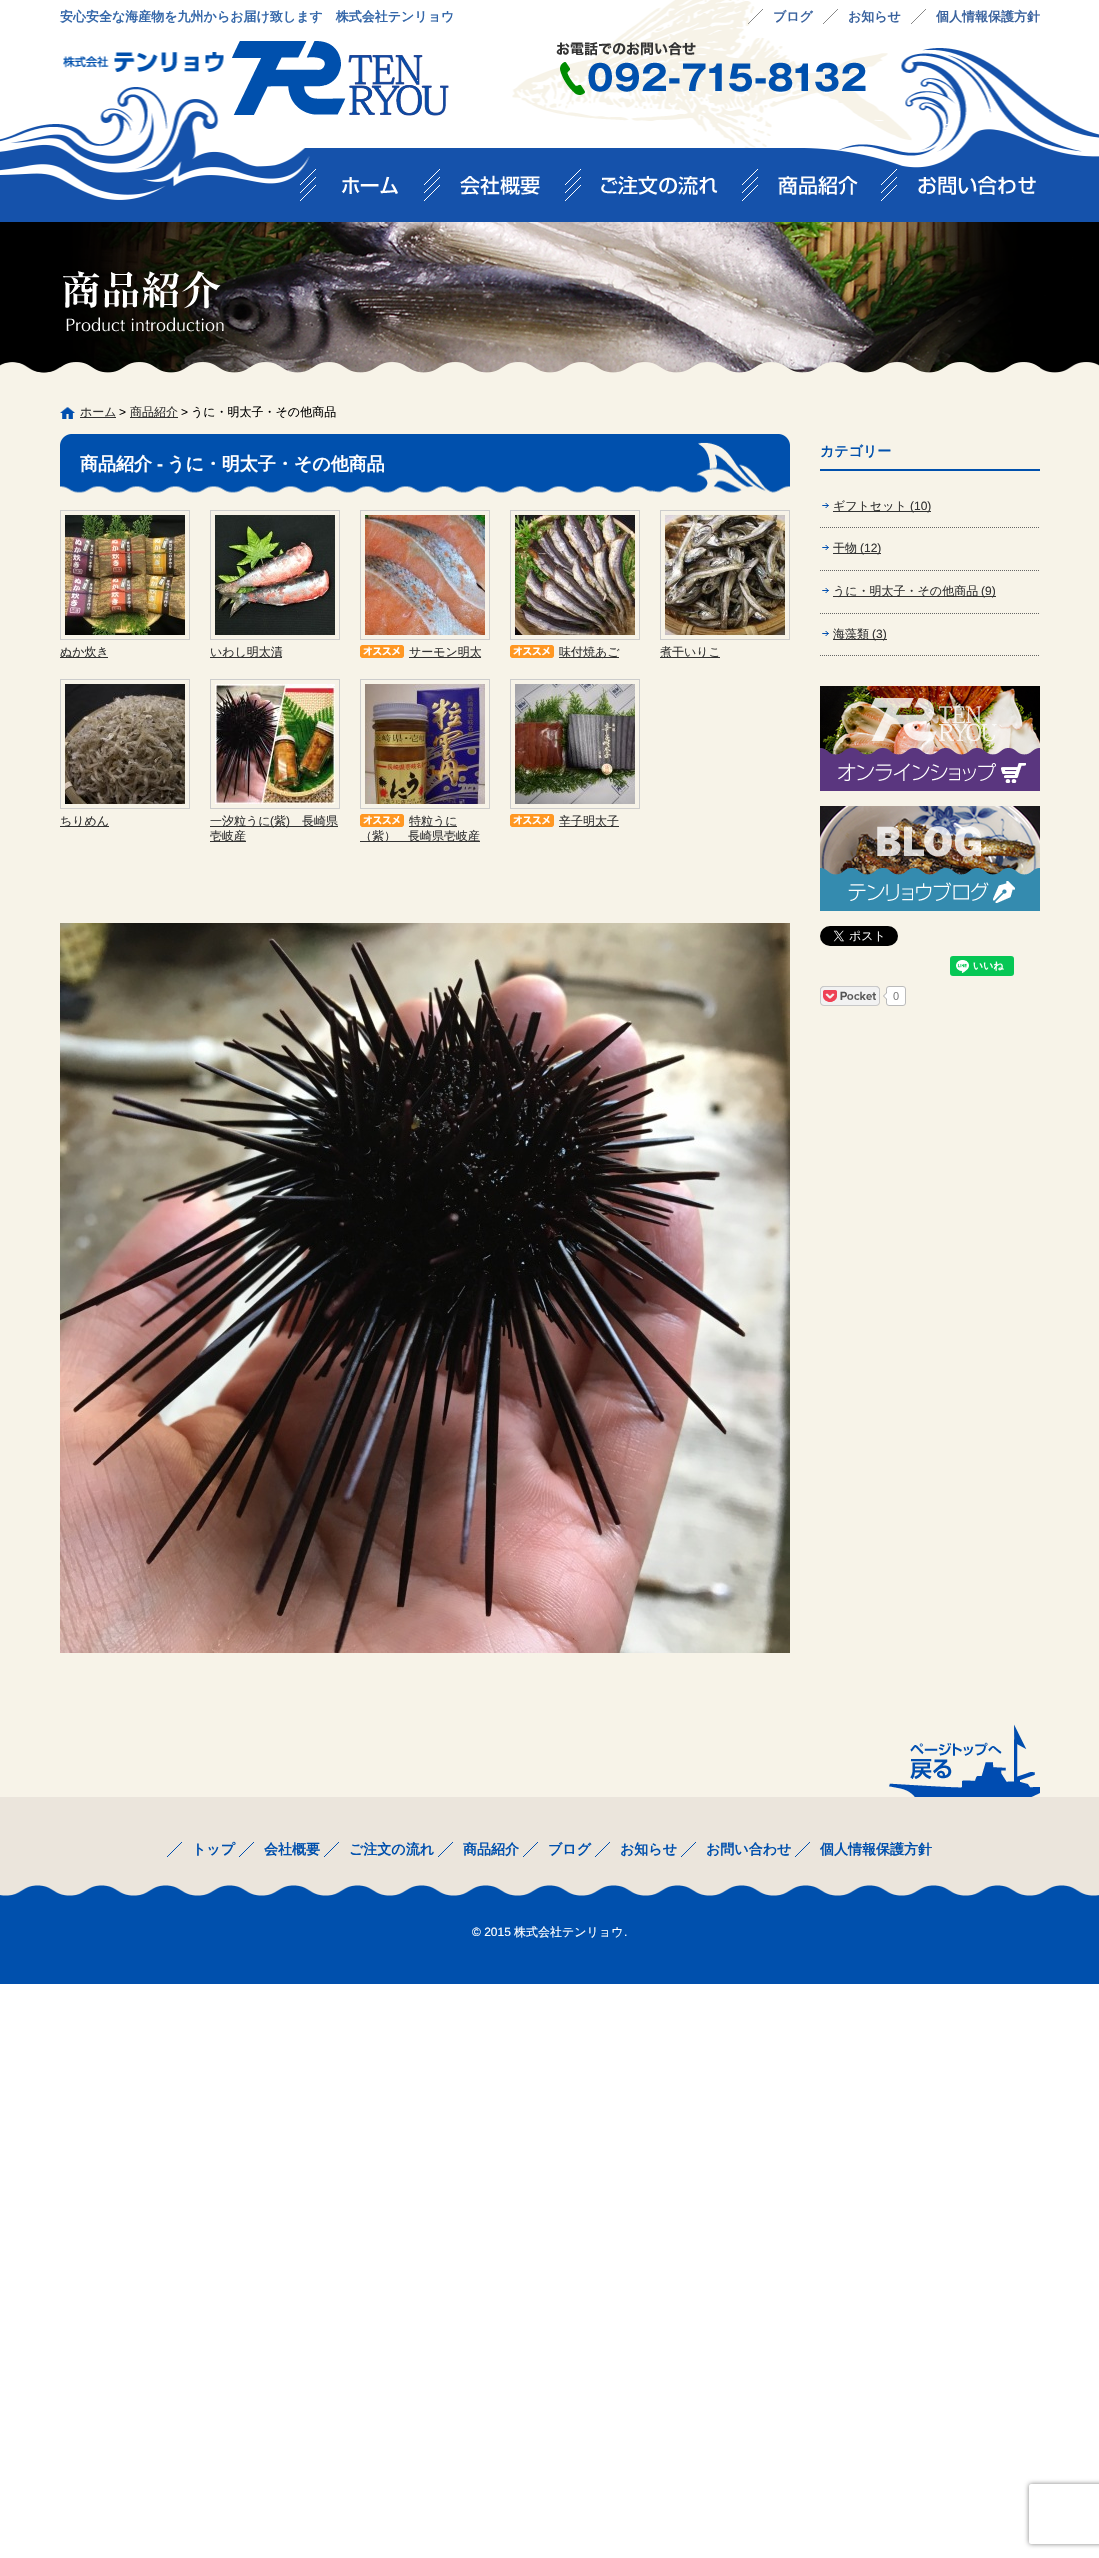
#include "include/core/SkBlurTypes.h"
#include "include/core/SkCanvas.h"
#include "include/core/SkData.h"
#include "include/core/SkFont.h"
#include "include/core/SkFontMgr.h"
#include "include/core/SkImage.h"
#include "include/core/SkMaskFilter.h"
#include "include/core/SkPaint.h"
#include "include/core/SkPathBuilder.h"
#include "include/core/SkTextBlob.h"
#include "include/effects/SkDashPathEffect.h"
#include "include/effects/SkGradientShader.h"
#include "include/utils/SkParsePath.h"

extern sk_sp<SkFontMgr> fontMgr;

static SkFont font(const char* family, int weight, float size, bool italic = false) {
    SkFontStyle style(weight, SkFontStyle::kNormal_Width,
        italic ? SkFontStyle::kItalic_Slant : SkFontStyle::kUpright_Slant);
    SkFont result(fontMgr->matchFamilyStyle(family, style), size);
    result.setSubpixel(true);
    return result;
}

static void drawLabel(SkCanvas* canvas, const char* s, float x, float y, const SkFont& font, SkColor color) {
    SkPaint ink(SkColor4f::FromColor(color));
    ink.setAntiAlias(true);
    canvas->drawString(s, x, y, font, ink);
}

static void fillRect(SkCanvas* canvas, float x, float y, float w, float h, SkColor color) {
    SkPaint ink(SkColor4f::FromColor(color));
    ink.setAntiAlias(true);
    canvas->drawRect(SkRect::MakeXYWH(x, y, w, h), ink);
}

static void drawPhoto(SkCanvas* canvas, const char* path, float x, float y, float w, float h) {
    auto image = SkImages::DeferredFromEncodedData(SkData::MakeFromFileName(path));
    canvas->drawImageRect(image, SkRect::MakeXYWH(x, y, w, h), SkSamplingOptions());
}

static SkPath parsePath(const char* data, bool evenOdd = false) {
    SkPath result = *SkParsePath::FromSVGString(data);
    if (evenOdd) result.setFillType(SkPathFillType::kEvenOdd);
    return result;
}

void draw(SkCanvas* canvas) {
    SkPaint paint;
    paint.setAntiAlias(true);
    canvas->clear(0xFFFFFFFF);
    fillRect(canvas, 0, 373, 1099, 1424, 0xFFF7F3E8);
    drawPhoto(canvas, "assets/img1.png", 0, 0, 1099, 148);
    SkFont font1 = font("WenQuanYi Zen Hei", 700, 13);
    drawLabel(canvas, "安心安全な海産物を九州からお届け致します　株式会社テンリョウ", 60, 21, font1, 0xFF3467A9);
    drawPhoto(canvas, "assets/img2.png", 748, 9, 15, 15);
    drawLabel(canvas, "ブログ", 773, 21, font1, 0xFF39629E);
    drawPhoto(canvas, "assets/img3.png", 823, 9, 15, 15);
    drawLabel(canvas, "お知らせ", 848, 21, font1, 0xFF39629E);
    drawPhoto(canvas, "assets/img3.png", 911, 9, 15, 15);
    drawLabel(canvas, "個人情報保護方針", 936, 21, font1, 0xFF39629E);
    drawPhoto(canvas, "assets/img4.png", 232, 41, 217, 75);
    drawPhoto(canvas, "assets/img5.png", 556, 42, 310, 53);
    drawPhoto(canvas, "assets/img6.png", 0, 148, 1099, 74);
    drawPhoto(canvas, "assets/img7.png", 300, 169, 140, 32);
    drawPhoto(canvas, "assets/img8.png", 460, 169, 121, 32);
    drawPhoto(canvas, "assets/img9.png", 601, 169, 157, 32);
    drawPhoto(canvas, "assets/img10.png", 778, 169, 119, 32);
    drawPhoto(canvas, "assets/img11.png", 918, 176, 118, 19);
    drawPhoto(canvas, "assets/img12.png", 0, 222, 1099, 151);
    drawPhoto(canvas, "assets/img13.png", 60, 222, 980, 151);
    drawPhoto(canvas, "assets/img14.png", 60, 407, 15, 12);
    fillRect(canvas, 80, 417, 36, 1, 0xFF333333);
    SkFont font2 = font("WenQuanYi Zen Hei", 500, 12);
    drawLabel(canvas, "ホーム", 80, 416, font2, 0xFF333333);
    SkFont font3 = font("Liberation Sans", 400, 12);
    drawLabel(canvas, ">", 119, 416, font3, 0xFF000000);
    fillRect(canvas, 130, 417, 48, 1, 0xFF333333);
    drawLabel(canvas, "商品紹介", 130, 416, font2, 0xFF333333);
    drawLabel(canvas, ">", 181, 416, font3, 0xFF000000);
    drawLabel(canvas, "うに・明太子・その他商品", 191, 416, font2, 0xFF000000);
    drawPhoto(canvas, "assets/img15.png", 60, 434, 730, 59);
    SkFont font4 = font("WenQuanYi Zen Hei", 700, 18);
    drawLabel(canvas, "商品紹介", 80, 470, font4, 0xFFFFFFFF);
    SkFont font5 = font("Liberation Sans", 700, 18);
    drawLabel(canvas, "-", 157, 470, font5, 0xFFFFFFFF);
    drawLabel(canvas, "うに・明太子・その他商品", 167, 470, font4, 0xFFFFFFFF);
    paint.setStroke(true);
    paint.setStrokeWidth(1);
    paint.setColor(0xFFCCCCCC);
    canvas->drawRect(SkRect::MakeXYWH(60.5f, 510.5f, 129, 129), paint);
    drawPhoto(canvas, "assets/img16.png", 65, 515, 120, 120);
    fillRect(canvas, 60, 657, 48, 1, 0xFF333333);
    drawLabel(canvas, "ぬか炊き", 60, 656, font2, 0xFF333333);
    canvas->drawRect(SkRect::MakeXYWH(210.5f, 510.5f, 129, 129), paint);
    drawPhoto(canvas, "assets/img17.png", 215, 515, 120, 120);
    fillRect(canvas, 210, 657, 72, 1, 0xFF333333);
    drawLabel(canvas, "いわし明太漬", 210, 656, font2, 0xFF333333);
    canvas->drawRect(SkRect::MakeXYWH(360.5f, 510.5f, 129, 129), paint);
    drawPhoto(canvas, "assets/img18.png", 365, 515, 120, 120);
    drawPhoto(canvas, "assets/img19.png", 360, 645, 44, 13);
    fillRect(canvas, 409, 657, 72, 1, 0xFF333333);
    drawLabel(canvas, "サーモン明太", 409, 656, font2, 0xFF333333);
    canvas->drawRect(SkRect::MakeXYWH(510.5f, 510.5f, 129, 129), paint);
    drawPhoto(canvas, "assets/img20.png", 515, 515, 120, 120);
    drawPhoto(canvas, "assets/img19.png", 510, 645, 44, 13);
    fillRect(canvas, 559, 657, 60, 1, 0xFF333333);
    drawLabel(canvas, "味付焼あご", 559, 656, font2, 0xFF333333);
    canvas->drawRect(SkRect::MakeXYWH(660.5f, 510.5f, 129, 129), paint);
    drawPhoto(canvas, "assets/img21.png", 665, 515, 120, 120);
    fillRect(canvas, 660, 657, 60, 1, 0xFF333333);
    drawLabel(canvas, "煮干いりこ", 660, 656, font2, 0xFF333333);
    canvas->drawRect(SkRect::MakeXYWH(60.5f, 679.5f, 129, 129), paint);
    drawPhoto(canvas, "assets/img22.png", 65, 684, 120, 120);
    fillRect(canvas, 60, 826, 49, 1, 0xFF333333);
    drawLabel(canvas, "ちりめん", 60, 825, font2, 0xFF333333);
    canvas->drawRect(SkRect::MakeXYWH(210.5f, 679.5f, 129, 129), paint);
    drawPhoto(canvas, "assets/img23.png", 215, 684, 120, 120);
    fillRect(canvas, 210, 826, 128, 1, 0xFF333333);
    drawLabel(canvas, "一汐粒うに", 210, 825, font2, 0xFF333333);
    drawLabel(canvas, "(", 270, 825, font3, 0xFF333333);
    drawLabel(canvas, "紫", 274, 825, font2, 0xFF333333);
    drawLabel(canvas, ")", 286, 825, font3, 0xFF333333);
    drawLabel(canvas, "長崎県", 302, 825, font2, 0xFF333333);
    fillRect(canvas, 210, 841, 36, 1, 0xFF333333);
    drawLabel(canvas, "壱岐産", 210, 840, font2, 0xFF333333);
    canvas->drawRect(SkRect::MakeXYWH(360.5f, 679.5f, 129, 129), paint);
    drawPhoto(canvas, "assets/img24.png", 365, 684, 120, 120);
    drawPhoto(canvas, "assets/img19.png", 360, 814, 44, 13);
    fillRect(canvas, 409, 826, 48, 1, 0xFF333333);
    drawLabel(canvas, "特粒うに", 409, 825, font2, 0xFF333333);
    fillRect(canvas, 360, 841, 120, 1, 0xFF333333);
    drawLabel(canvas, "（紫）　長崎県壱岐産", 360, 840, font2, 0xFF333333);
    canvas->drawRect(SkRect::MakeXYWH(510.5f, 679.5f, 129, 129), paint);
    drawPhoto(canvas, "assets/img25.png", 515, 684, 120, 120);
    drawPhoto(canvas, "assets/img19.png", 510, 814, 44, 13);
    fillRect(canvas, 559, 826, 60, 1, 0xFF333333);
    drawLabel(canvas, "辛子明太子", 559, 825, font2, 0xFF333333);
    drawPhoto(canvas, "assets/img26.png", 60, 923, 730, 730);
    fillRect(canvas, 820, 469, 220, 2, 0xFF0050AD);
    SkFont font6 = font("WenQuanYi Zen Hei", 700, 14);
    drawLabel(canvas, "カテゴリー", 820, 456, font6, 0xFF0050AD);
    paint.setColor(0xFF666666);
    paint.setPathEffect(SkDashPathEffect::Make({{1, 1}}, 0));
    canvas->drawPath(parsePath("M820 527.5H1040"), paint);
    paint.setPathEffect(nullptr);
    drawPhoto(canvas, "assets/img27.png", 822, 503, 7, 5);
    fillRect(canvas, 833, 511, 98, 1, 0xFF333333);
    drawLabel(canvas, "ギフトセット", 833, 510, font2, 0xFF333333);
    drawLabel(canvas, "(10)", 910, 510, font3, 0xFF333333);
    paint.setPathEffect(SkDashPathEffect::Make({{1, 1}}, 0));
    canvas->drawPath(parsePath("M820 570.5H1040"), paint);
    paint.setPathEffect(nullptr);
    drawPhoto(canvas, "assets/img27.png", 822, 545, 7, 5);
    fillRect(canvas, 833, 553, 48, 1, 0xFF333333);
    drawLabel(canvas, "干物", 833, 552, font2, 0xFF333333);
    drawLabel(canvas, "(12)", 860, 552, font3, 0xFF333333);
    paint.setPathEffect(SkDashPathEffect::Make({{1, 1}}, 0));
    canvas->drawPath(parsePath("M820 613.5H1040"), paint);
    paint.setPathEffect(nullptr);
    drawPhoto(canvas, "assets/img27.png", 822, 588, 7, 5);
    fillRect(canvas, 833, 596, 163, 1, 0xFF333333);
    drawLabel(canvas, "うに・明太子・その他商品", 833, 595, font2, 0xFF333333);
    drawLabel(canvas, "(9)", 981, 595, font3, 0xFF333333);
    paint.setPathEffect(SkDashPathEffect::Make({{1, 1}}, 0));
    canvas->drawPath(parsePath("M820 655.5H1040"), paint);
    paint.setPathEffect(nullptr);
    drawPhoto(canvas, "assets/img27.png", 822, 631, 7, 5);
    fillRect(canvas, 833, 639, 54, 1, 0xFF333333);
    drawLabel(canvas, "海藻類", 833, 638, font2, 0xFF333333);
    drawLabel(canvas, "(3)", 872, 638, font3, 0xFF333333);
    drawPhoto(canvas, "assets/img28.png", 820, 686, 220, 105);
    drawPhoto(canvas, "assets/img29.png", 820, 806, 220, 105);
    drawPhoto(canvas, "assets/img30.png", 820, 926, 78, 20);
    drawPhoto(canvas, "assets/img31.png", 950, 956, 64, 20);
    drawPhoto(canvas, "assets/img32.png", 820, 986, 86, 20);
    drawPhoto(canvas, "assets/img33.png", 889, 1724, 151, 73);
    fillRect(canvas, 0, 1797, 1099, 88, 0xFFEBE5DC);
    drawPhoto(canvas, "assets/img34.png", 0, 1885, 1099, 99);
    drawPhoto(canvas, "assets/img35.png", 167, 1842, 15, 15);
    drawLabel(canvas, "トップ", 192, 1854, font6, 0xFF0050AD);
    drawPhoto(canvas, "assets/img35.png", 239, 1842, 15, 15);
    drawLabel(canvas, "会社概要", 264, 1854, font6, 0xFF0050AD);
    drawPhoto(canvas, "assets/img35.png", 324, 1842, 15, 15);
    drawLabel(canvas, "ご注文の流れ", 349, 1854, font6, 0xFF0050AD);
    drawPhoto(canvas, "assets/img35.png", 438, 1842, 15, 15);
    drawLabel(canvas, "商品紹介", 463, 1854, font6, 0xFF0050AD);
    drawPhoto(canvas, "assets/img35.png", 523, 1842, 15, 15);
    drawLabel(canvas, "ブログ", 548, 1854, font6, 0xFF0050AD);
    drawPhoto(canvas, "assets/img35.png", 595, 1842, 15, 15);
    drawLabel(canvas, "お知らせ", 620, 1854, font6, 0xFF0050AD);
    drawPhoto(canvas, "assets/img35.png", 681, 1842, 15, 15);
    drawLabel(canvas, "お問い合わせ", 706, 1854, font6, 0xFF0050AD);
    drawPhoto(canvas, "assets/img35.png", 795, 1842, 15, 15);
    drawLabel(canvas, "個人情報保護方針", 820, 1854, font6, 0xFF0050AD);
    drawLabel(canvas, "© 2015", 472, 1936, font3, 0xFFFFFFFF);
    drawLabel(canvas, "株式会社テンリョウ", 514, 1936, font2, 0xFFFFFFFF);
    drawLabel(canvas, ".", 624, 1936, font3, 0xFFFFFFFF);
    canvas->save();
    canvas->clipPath(parsePath("M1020 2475H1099V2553H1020ZM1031 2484H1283C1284 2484 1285 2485 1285 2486V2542C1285 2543 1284 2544 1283 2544H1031C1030 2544 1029 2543 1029 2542V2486C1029 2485 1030 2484 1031 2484Z", true), true);
    paint.setStroke(false);
    paint.setColor(0xFF808080);
    paint.setMaskFilter(SkMaskFilter::MakeBlur(kNormal_SkBlurStyle, 2.5f));
    canvas->drawRoundRect(SkRect::MakeXYWH(1029, 2484, 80, 60), 2, 2, paint);
    paint.setMaskFilter(nullptr);
    canvas->restore();
}
